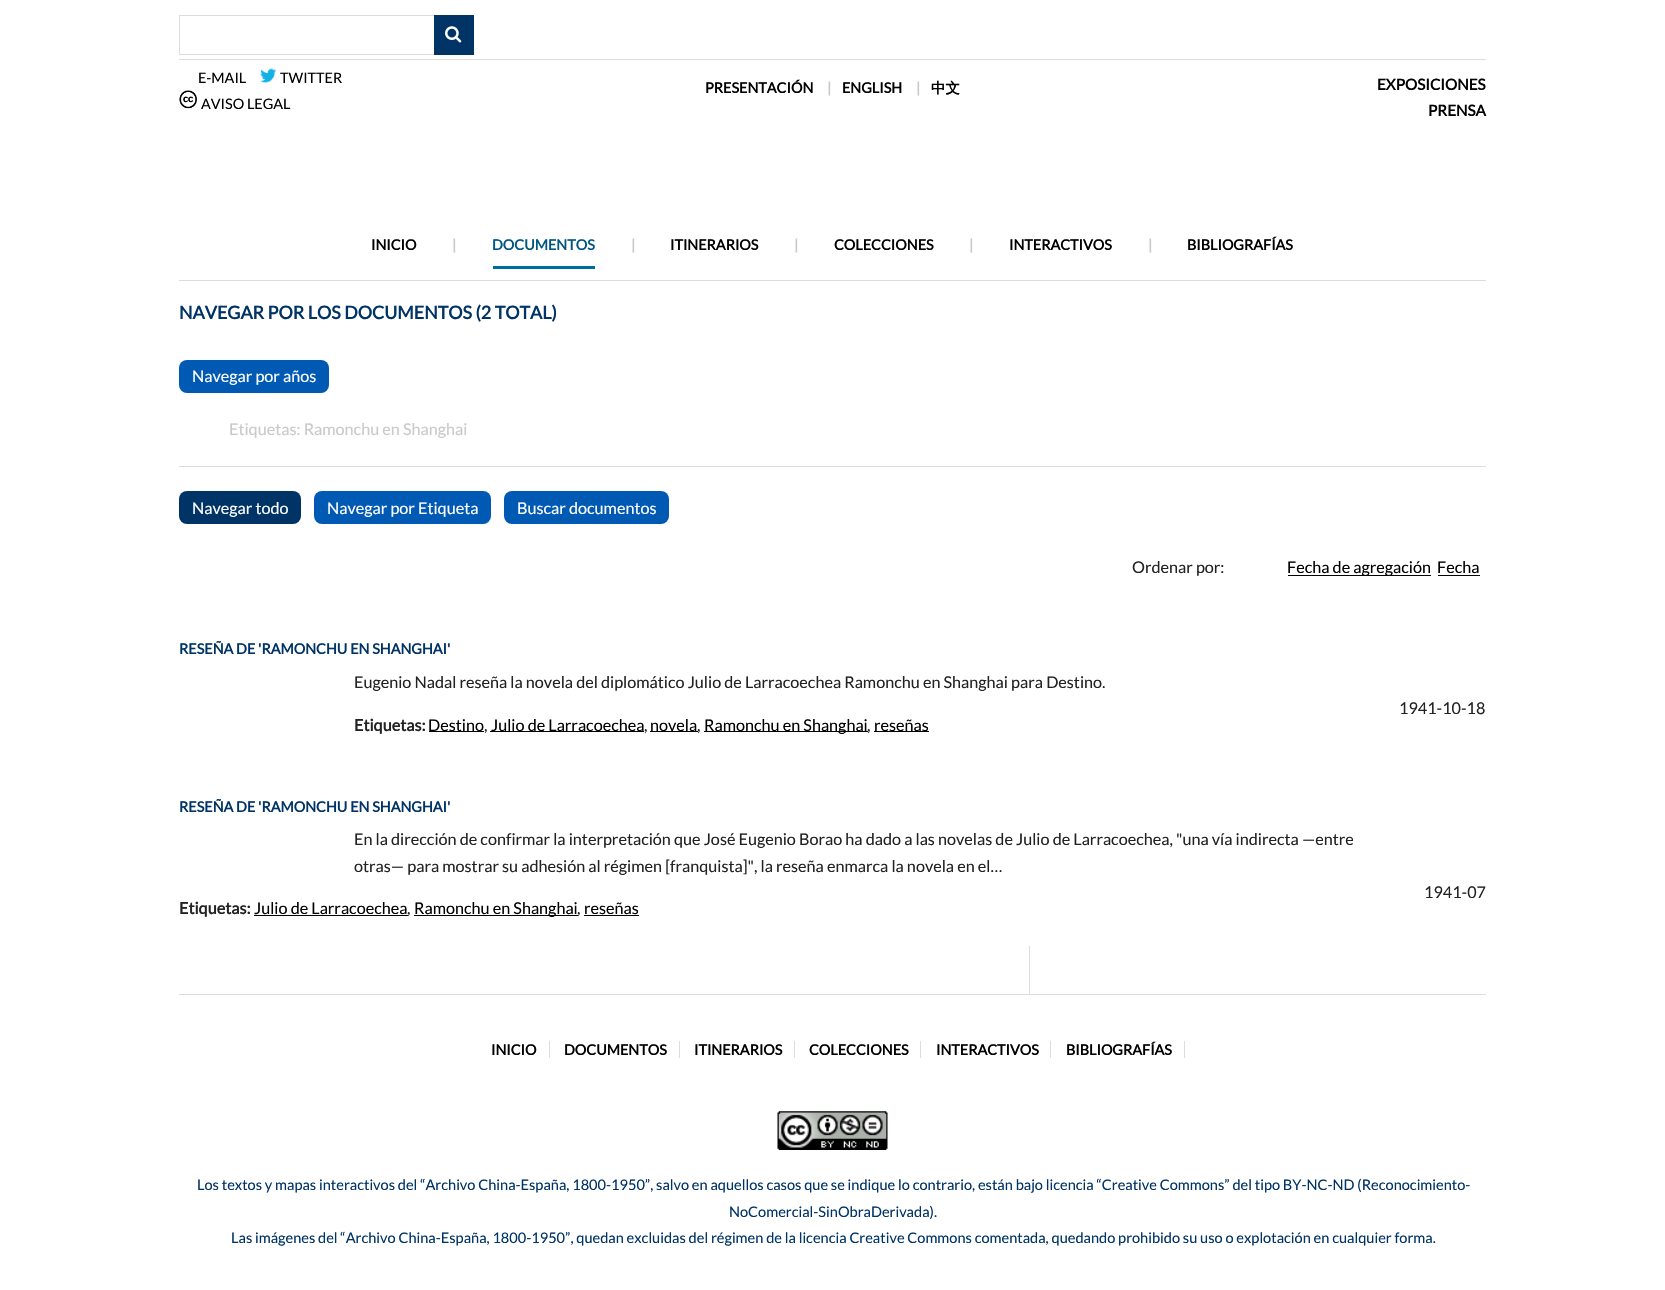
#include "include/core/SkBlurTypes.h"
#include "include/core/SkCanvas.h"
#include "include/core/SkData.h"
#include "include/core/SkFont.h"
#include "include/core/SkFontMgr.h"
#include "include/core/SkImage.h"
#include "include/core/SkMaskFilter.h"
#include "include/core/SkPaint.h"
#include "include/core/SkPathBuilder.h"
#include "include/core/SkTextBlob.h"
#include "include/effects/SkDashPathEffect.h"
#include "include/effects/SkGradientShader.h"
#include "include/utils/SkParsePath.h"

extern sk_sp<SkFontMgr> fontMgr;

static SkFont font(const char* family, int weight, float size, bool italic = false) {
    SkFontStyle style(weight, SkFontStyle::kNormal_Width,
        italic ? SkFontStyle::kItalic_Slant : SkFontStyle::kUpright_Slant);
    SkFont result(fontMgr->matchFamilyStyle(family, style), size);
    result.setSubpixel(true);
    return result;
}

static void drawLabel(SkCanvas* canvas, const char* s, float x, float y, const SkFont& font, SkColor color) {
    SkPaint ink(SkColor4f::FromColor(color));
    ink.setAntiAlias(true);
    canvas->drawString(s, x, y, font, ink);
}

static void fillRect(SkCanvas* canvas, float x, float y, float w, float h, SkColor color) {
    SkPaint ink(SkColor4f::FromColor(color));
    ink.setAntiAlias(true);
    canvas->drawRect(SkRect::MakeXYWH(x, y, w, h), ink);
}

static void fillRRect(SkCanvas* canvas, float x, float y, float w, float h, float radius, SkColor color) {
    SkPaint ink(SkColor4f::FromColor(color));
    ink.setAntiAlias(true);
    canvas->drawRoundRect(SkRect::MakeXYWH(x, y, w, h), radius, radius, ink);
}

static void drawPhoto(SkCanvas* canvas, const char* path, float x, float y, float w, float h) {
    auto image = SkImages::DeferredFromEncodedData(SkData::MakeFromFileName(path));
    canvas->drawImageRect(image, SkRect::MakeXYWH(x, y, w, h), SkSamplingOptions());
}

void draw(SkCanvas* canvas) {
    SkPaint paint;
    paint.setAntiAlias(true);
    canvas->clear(0xFFFFFFFF);
    paint.setStroke(true);
    paint.setStrokeWidth(1);
    paint.setColor(0xFFDDDDDD);
    canvas->drawRect(SkRect::MakeXYWH(179.5f, 15.5f, 294, 39), paint);
    fillRect(canvas, 434, 15, 40, 40, 0xFF003366);
    drawPhoto(canvas, "assets/img1.png", 445, 26, 17, 17);
    fillRect(canvas, 179, 59, 1307, 1, 0xFFDDDDDD);
    SkFont font1 = font("Lato", 400, 14.4f);
    drawLabel(canvas, "E-MAIL", 198, 83, font1, 0xFF000000);
    drawPhoto(canvas, "assets/img2.png", 260, 68, 17, 15);
    drawLabel(canvas, "TWITTER", 280, 83, font1, 0xFF000000);
    drawPhoto(canvas, "assets/img3.png", 179, 90, 18, 19);
    drawLabel(canvas, "AVISO LEGAL", 201, 109, font1, 0xFF000000);
    SkFont font2 = font("Lato", 700, 14.4f);
    drawLabel(canvas, "PRESENTACIÓN", 705, 93, font2, 0xFF000000);
    drawLabel(canvas, "|", 827, 93, font2, 0xFFC9C9C9);
    drawLabel(canvas, "ENGLISH", 842, 93, font2, 0xFF000000);
    drawLabel(canvas, "|", 916, 93, font2, 0xFFC9C9C9);
    SkFont font3 = font("WenQuanYi Zen Hei", 700, 14.4f);
    drawLabel(canvas, "中文", 931, 93, font3, 0xFF000000);
    SkFont font4 = font("Lato", 700, 15.25f);
    drawLabel(canvas, "EXPOSICIONES", 1377, 90, font4, 0xFF000000);
    drawLabel(canvas, "PRENSA", 1428, 116, font4, 0xFF000000);
    drawLabel(canvas, "INICIO", 371, 250, font2, 0xFF000000);
    drawLabel(canvas, "|", 452, 250, font2, 0xFFC9C9C9);
    fillRect(canvas, 493, 266, 102, 3, 0xFF016CA2);
    drawLabel(canvas, "DOCUMENTOS", 492, 250, font2, 0xFF005681);
    drawLabel(canvas, "|", 631, 250, font2, 0xFFC9C9C9);
    drawLabel(canvas, "ITINERARIOS", 670, 250, font2, 0xFF000000);
    drawLabel(canvas, "|", 794, 250, font2, 0xFFC9C9C9);
    drawLabel(canvas, "COLECCIONES", 834, 250, font2, 0xFF000000);
    drawLabel(canvas, "|", 969, 250, font2, 0xFFC9C9C9);
    drawLabel(canvas, "INTERACTIVOS", 1009, 250, font2, 0xFF000000);
    drawLabel(canvas, "|", 1148, 250, font2, 0xFFC9C9C9);
    drawLabel(canvas, "BIBLIOGRAFÍAS", 1187, 250, font2, 0xFF000000);
    fillRect(canvas, 179, 280, 1307, 1, 0xFFDDDDDD);
    fillRect(canvas, 179, 994, 1307, 1, 0xFFDDDDDD);
    SkFont font5 = font("Lato", 700, 17.9f);
    drawLabel(canvas, "NAVEGAR POR LOS DOCUMENTOS (2 TOTAL)", 179, 319, font5, 0xFF003366);
    fillRRect(canvas, 179, 360, 150, 33, 8, 0xFF005AB4);
    SkFont font6 = font("Lato", 400, 16.2f);
    drawLabel(canvas, "Navegar por años", 192, 382, font6, 0xFFFFFFFF);
    fillRect(canvas, 179, 466, 1307, 1, 0xFFDDDDDD);
    drawLabel(canvas, "Etiquetas: Ramonchu en Shanghai", 229, 435, font6, 0xFFC9C9C9);
    fillRRect(canvas, 179, 491, 122, 33, 8, 0xFF003366);
    drawLabel(canvas, "Navegar todo", 192, 514, font6, 0xFFFFFFFF);
    fillRRect(canvas, 314, 491, 177, 33, 8, 0xFF005AB4);
    drawLabel(canvas, "Navegar por Etiqueta", 327, 514, font6, 0xFFFFFFFF);
    fillRRect(canvas, 504, 491, 165, 33, 8, 0xFF005AB4);
    drawLabel(canvas, "Buscar documentos", 517, 514, font6, 0xFFFFFFFF);
    drawLabel(canvas, "Ordenar por:", 1132, 573, font6, 0xFF222222);
    fillRect(canvas, 1288, 575, 143, 1, 0xFF000000);
    drawLabel(canvas, "Fecha de agregación", 1287, 573, font6, 0xFF000000);
    drawLabel(canvas, "Fecha", 1437, 573, font6, 0xFF000000);
    fillRect(canvas, 1438, 575, 42, 1, 0xFF000000);
    drawLabel(canvas, "RESEÑA DE 'RAMONCHU EN SHANGHAI'", 179, 654, font2, 0xFF003366);
    drawLabel(canvas, "Eugenio Nadal reseña la novela del diplomático Julio de Larracoechea Ramonchu en Shanghai para Destino.", 354, 688, font6, 0xFF222222);
    drawLabel(canvas, "1941-10-18", 1399, 714, font6, 0xFF222222);
    SkFont font7 = font("Lato", 700, 16.2f);
    drawLabel(canvas, "Etiquetas:", 354, 731, font7, 0xFF222222);
    fillRect(canvas, 429, 731, 55, 1, 0xFF000000);
    drawLabel(canvas, "Destino", 428, 731, font6, 0xFF000000);
    drawLabel(canvas, ",", 484, 731, font6, 0xFF222222);
    fillRect(canvas, 490, 731, 154, 1, 0xFF000000);
    drawLabel(canvas, "Julio de Larracoechea", 491, 731, font6, 0xFF000000);
    drawLabel(canvas, ",", 644, 731, font6, 0xFF222222);
    fillRect(canvas, 650, 731, 48, 1, 0xFF000000);
    drawLabel(canvas, "novela", 650, 731, font6, 0xFF000000);
    drawLabel(canvas, ",", 697, 731, font6, 0xFF222222);
    fillRect(canvas, 704, 731, 164, 1, 0xFF000000);
    drawLabel(canvas, "Ramonchu en Shanghai", 704, 731, font6, 0xFF000000);
    drawLabel(canvas, ",", 867, 731, font6, 0xFF222222);
    fillRect(canvas, 874, 731, 55, 1, 0xFF000000);
    drawLabel(canvas, "reseñas", 874, 731, font6, 0xFF000000);
    drawLabel(canvas, "RESEÑA DE 'RAMONCHU EN SHANGHAI'", 179, 812, font2, 0xFF003366);
    drawLabel(canvas, "En la dirección de confirmar la interpretación que José Eugenio Borao ha dado a las novelas de Julio de Larracoechea, \"una vía indirecta —entre", 354, 845, font6, 0xFF222222);
    drawLabel(canvas, "otras— para mostrar su adhesión al régimen [franquista]\", la reseña enmarca la novela en el…", 354, 872, font6, 0xFF222222);
    drawLabel(canvas, "1941-07", 1424, 898, font6, 0xFF222222);
    drawLabel(canvas, "Etiquetas:", 179, 914, font7, 0xFF222222);
    drawLabel(canvas, "Julio de Larracoechea", 254, 914, font6, 0xFF000000);
    fillRect(canvas, 254, 915, 154, 1, 0xFF000000);
    drawLabel(canvas, ",", 407, 914, font6, 0xFF222222);
    fillRect(canvas, 414, 915, 164, 1, 0xFF000000);
    drawLabel(canvas, "Ramonchu en Shanghai", 414, 914, font6, 0xFF000000);
    drawLabel(canvas, ",", 577, 914, font6, 0xFF222222);
    drawLabel(canvas, "reseñas", 584, 914, font6, 0xFF000000);
    fillRect(canvas, 584, 915, 55, 1, 0xFF000000);
    fillRect(canvas, 1029, 946, 1, 48, 0xFFDDDDDD);
    drawLabel(canvas, "INICIO", 491, 1055, font2, 0xFF000000);
    fillRect(canvas, 549, 1041, 1, 17, 0xFFDDDDDD);
    drawLabel(canvas, "DOCUMENTOS", 564, 1055, font2, 0xFF000000);
    fillRect(canvas, 679, 1041, 1, 17, 0xFFDDDDDD);
    drawLabel(canvas, "ITINERARIOS", 694, 1055, font2, 0xFF000000);
    fillRect(canvas, 794, 1041, 1, 17, 0xFFDDDDDD);
    drawLabel(canvas, "COLECCIONES", 809, 1055, font2, 0xFF000000);
    fillRect(canvas, 920, 1041, 1, 17, 0xFFDDDDDD);
    drawLabel(canvas, "INTERACTIVOS", 936, 1055, font2, 0xFF000000);
    fillRect(canvas, 1050, 1041, 1, 17, 0xFFDDDDDD);
    drawLabel(canvas, "BIBLIOGRAFÍAS", 1066, 1055, font2, 0xFF000000);
    fillRect(canvas, 1184, 1041, 1, 17, 0xFFDDDDDD);
    drawPhoto(canvas, "assets/img4.png", 777, 1111, 111, 39);
    SkFont font8 = font("Lato", 400, 14.57f);
    drawLabel(canvas, "Los textos y mapas interactivos del “Archivo China-España, 1800-1950”, salvo en aquellos casos que se indique lo contrario, están bajo licencia “Creative Commons” del tipo BY-NC-ND (Reconocimiento-", 197, 1190, font8, 0xFF003366);
    drawLabel(canvas, "NoComercial-SinObraDerivada).", 729, 1217, font8, 0xFF003366);
    drawLabel(canvas, "Las imágenes del “Archivo China-España, 1800-1950”, quedan excluidas del régimen de la licencia Creative Commons comentada, quedando prohibido su uso o explotación en cualquier forma.", 231, 1243, font8, 0xFF003366);
}
